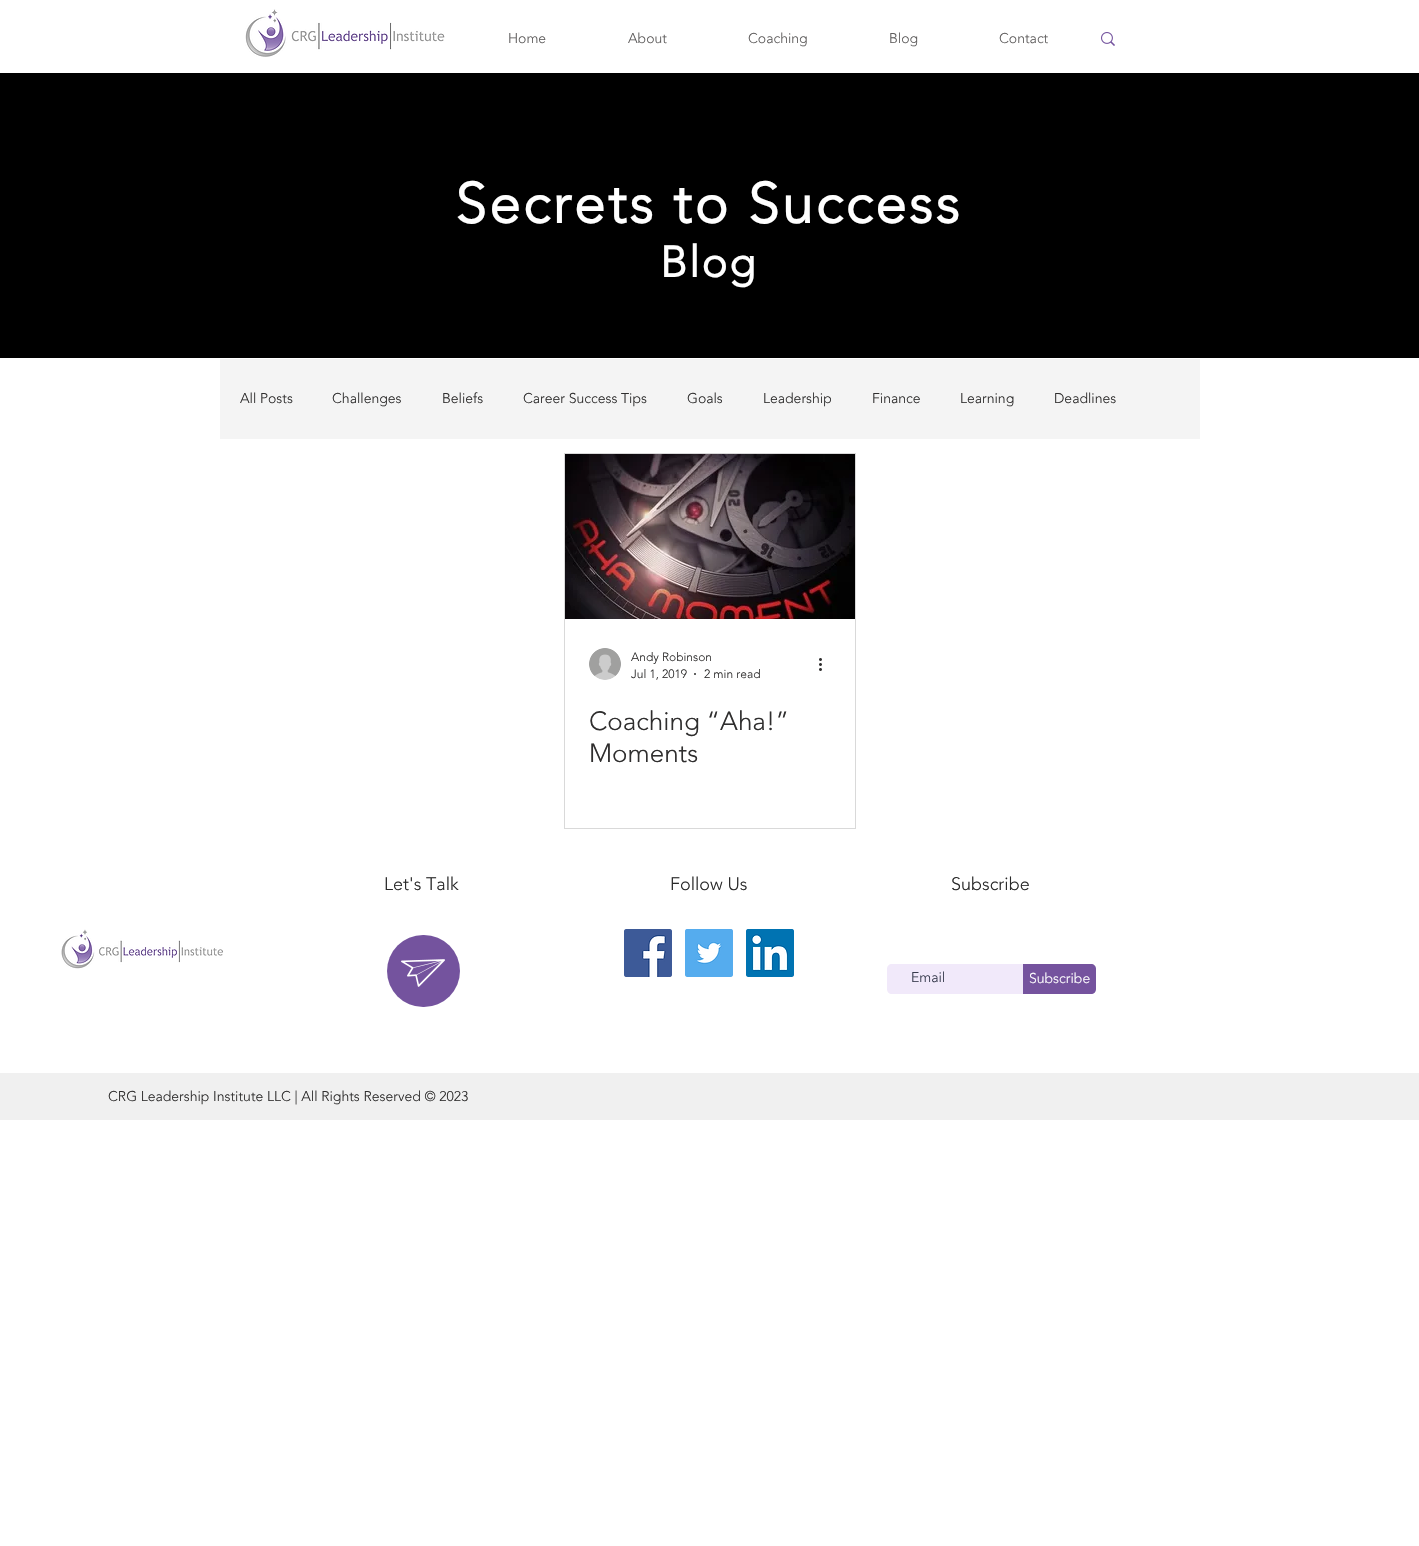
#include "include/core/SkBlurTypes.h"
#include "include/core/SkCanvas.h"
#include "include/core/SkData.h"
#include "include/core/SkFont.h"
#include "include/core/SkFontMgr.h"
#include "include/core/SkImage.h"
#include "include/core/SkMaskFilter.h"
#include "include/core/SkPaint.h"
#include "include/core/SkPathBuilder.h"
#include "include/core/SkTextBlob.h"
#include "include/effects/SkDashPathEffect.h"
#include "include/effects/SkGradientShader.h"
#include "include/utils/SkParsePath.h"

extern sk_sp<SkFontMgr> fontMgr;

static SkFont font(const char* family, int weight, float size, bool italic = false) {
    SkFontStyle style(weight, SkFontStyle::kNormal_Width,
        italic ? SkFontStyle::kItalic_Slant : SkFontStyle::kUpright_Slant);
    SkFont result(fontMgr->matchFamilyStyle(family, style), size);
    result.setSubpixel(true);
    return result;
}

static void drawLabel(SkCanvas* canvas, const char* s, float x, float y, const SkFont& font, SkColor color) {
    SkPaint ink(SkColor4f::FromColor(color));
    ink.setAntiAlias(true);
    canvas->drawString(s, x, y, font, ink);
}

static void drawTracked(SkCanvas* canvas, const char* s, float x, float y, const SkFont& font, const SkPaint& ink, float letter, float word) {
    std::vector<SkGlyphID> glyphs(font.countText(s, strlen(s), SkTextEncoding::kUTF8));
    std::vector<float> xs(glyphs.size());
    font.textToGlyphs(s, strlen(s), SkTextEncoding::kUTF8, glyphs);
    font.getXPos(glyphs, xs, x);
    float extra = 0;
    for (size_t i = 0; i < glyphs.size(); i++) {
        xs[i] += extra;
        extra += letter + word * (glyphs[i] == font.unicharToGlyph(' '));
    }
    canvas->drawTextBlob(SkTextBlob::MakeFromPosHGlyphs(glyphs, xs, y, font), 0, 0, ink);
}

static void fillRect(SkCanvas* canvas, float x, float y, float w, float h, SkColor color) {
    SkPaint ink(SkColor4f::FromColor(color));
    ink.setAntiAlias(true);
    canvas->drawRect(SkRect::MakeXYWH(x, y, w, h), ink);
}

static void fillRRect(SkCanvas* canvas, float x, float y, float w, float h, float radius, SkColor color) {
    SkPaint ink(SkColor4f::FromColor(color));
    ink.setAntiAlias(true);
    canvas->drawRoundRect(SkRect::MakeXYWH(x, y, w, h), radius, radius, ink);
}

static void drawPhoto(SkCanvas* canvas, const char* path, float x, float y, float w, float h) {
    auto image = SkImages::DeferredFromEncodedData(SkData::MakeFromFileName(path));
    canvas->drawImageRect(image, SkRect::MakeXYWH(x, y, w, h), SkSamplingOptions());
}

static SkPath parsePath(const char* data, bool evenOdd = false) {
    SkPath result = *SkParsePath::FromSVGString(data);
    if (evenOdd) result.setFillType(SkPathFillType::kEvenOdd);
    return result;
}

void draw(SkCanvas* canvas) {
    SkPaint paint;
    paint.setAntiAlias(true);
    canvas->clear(0xFFFFFFFF);
    drawPhoto(canvas, "assets/img1.png", 245, 9, 200, 48);
    SkFont font1 = font("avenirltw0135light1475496", 300, 14);
    drawLabel(canvas, "Home", 508, 43, font1, 0xFF605E5E);
    drawLabel(canvas, "About", 628, 43, font1, 0xFF605E5E);
    drawLabel(canvas, "Coaching", 748, 43, font1, 0xFF605E5E);
    drawLabel(canvas, "Blog", 889, 43, font1, 0xFF605E5E);
    drawLabel(canvas, "Contact", 999, 43, font1, 0xFF605E5E);
    drawPhoto(canvas, "assets/img2.png", 1101, 32, 14, 14);
    fillRect(canvas, 0, 73, 1419, 285, 0xFF000000);
    SkFont font2 = font("avenirltw0135light1475496", 700, 56);
    paint.setColor(0xFFFFFFFF);
    drawTracked(canvas, "Secrets to Success", 455, 223, font2, paint, 2.75f, 0);
    SkFont font3 = font("avenirltw0135light1475496", 700, 43);
    drawTracked(canvas, "Blog", 660, 277, font3, paint, 2, 0);
    fillRect(canvas, 220, 359, 980, 80, 0xFFF4F4F4);
    drawLabel(canvas, "All Posts", 240, 403, font1, 0xFF2F2E2E);
    drawLabel(canvas, "Challenges", 332, 403, font1, 0xFF2F2E2E);
    drawLabel(canvas, "Beliefs", 442, 403, font1, 0xFF2F2E2E);
    drawLabel(canvas, "Career Success Tips", 523, 403, font1, 0xFF2F2E2E);
    drawLabel(canvas, "Goals", 687, 403, font1, 0xFF2F2E2E);
    drawLabel(canvas, "Leadership", 763, 403, font1, 0xFF2F2E2E);
    drawLabel(canvas, "Finance", 872, 403, font1, 0xFF2F2E2E);
    drawLabel(canvas, "Learning", 960, 403, font1, 0xFF2F2E2E);
    drawLabel(canvas, "Deadlines", 1054, 403, font1, 0xFF2F2E2E);
    paint.setStroke(true);
    paint.setStrokeWidth(1);
    paint.setColor(0xFFD9D9D9);
    canvas->drawRect(SkRect::MakeXYWH(564.5f, 453.5f, 291, 375), paint);
    drawPhoto(canvas, "assets/img3.png", 565, 454, 290, 165);
    drawPhoto(canvas, "assets/img4.png", 589, 648, 32, 32);
    SkFont font4 = font("avenirltw0135light1475496", 300, 12);
    drawLabel(canvas, "Andy Robinson", 631, 661, font4, 0xFF2F2E2E);
    drawLabel(canvas, "Jul 1, 2019", 631, 678, font4, 0xFF2F2E2E);
    paint.setStroke(false);
    paint.setColor(0xFF2F2E2E);
    canvas->drawCircle(695, 674, 1, paint);
    drawLabel(canvas, "2 min read", 704, 678, font4, 0xFF2F2E2E);
    drawPhoto(canvas, "assets/img5.png", 819, 658, 3, 13);
    SkFont font5 = font("avenirltw0135light1475496", 300, 26);
    drawLabel(canvas, "Coaching “Aha!”", 589, 730, font5, 0xFF2F2E2E);
    drawLabel(canvas, "Moments", 589, 762, font5, 0xFF2F2E2E);
    drawPhoto(canvas, "assets/img6.png", 61, 929, 162, 40);
    SkFont font6 = font("avenirltw0135light1475496", 300, 18);
    drawLabel(canvas, "Let's Talk", 384, 890, font6, 0xFF292929);
    fillRRect(canvas, 387, 935, 73, 72, 36, 0xFF74539E);
    drawPhoto(canvas, "assets/img7.png", 401, 959, 44, 28);
    drawLabel(canvas, "Follow Us", 670, 890, font6, 0xFF292929);
    drawPhoto(canvas, "assets/img8.png", 624, 929, 48, 48);
    drawPhoto(canvas, "assets/img9.png", 685, 929, 48, 48);
    drawPhoto(canvas, "assets/img10.png", 746, 929, 48, 48);
    drawLabel(canvas, "Subscribe", 951, 890, font6, 0xFF292929);
    paint.setColor(0xFFF1E9FA);
    canvas->drawPath(parsePath("M892 964H1023V994H892C889 994 887 992 887 989V969C887 966 889 964 892 964Z"), paint);
    drawLabel(canvas, "Email", 911, 982, font1, 0xFF373B4D);
    paint.setColor(0xFF75539E);
    canvas->drawPath(parsePath("M1023 964H1091C1094 964 1096 966 1096 969V989C1096 992 1094 994 1091 994H1023Z"), paint);
    drawLabel(canvas, "Subscribe", 1029, 983, font1, 0xFFFFFFFF);
    fillRect(canvas, 0, 1073, 1419, 47, 0xFFF0F0F0);
    drawLabel(canvas, "CRG Leadership Institute LLC | All Rights Reserved © 2023", 108, 1101, font1, 0xFF2F2E2E);
}
